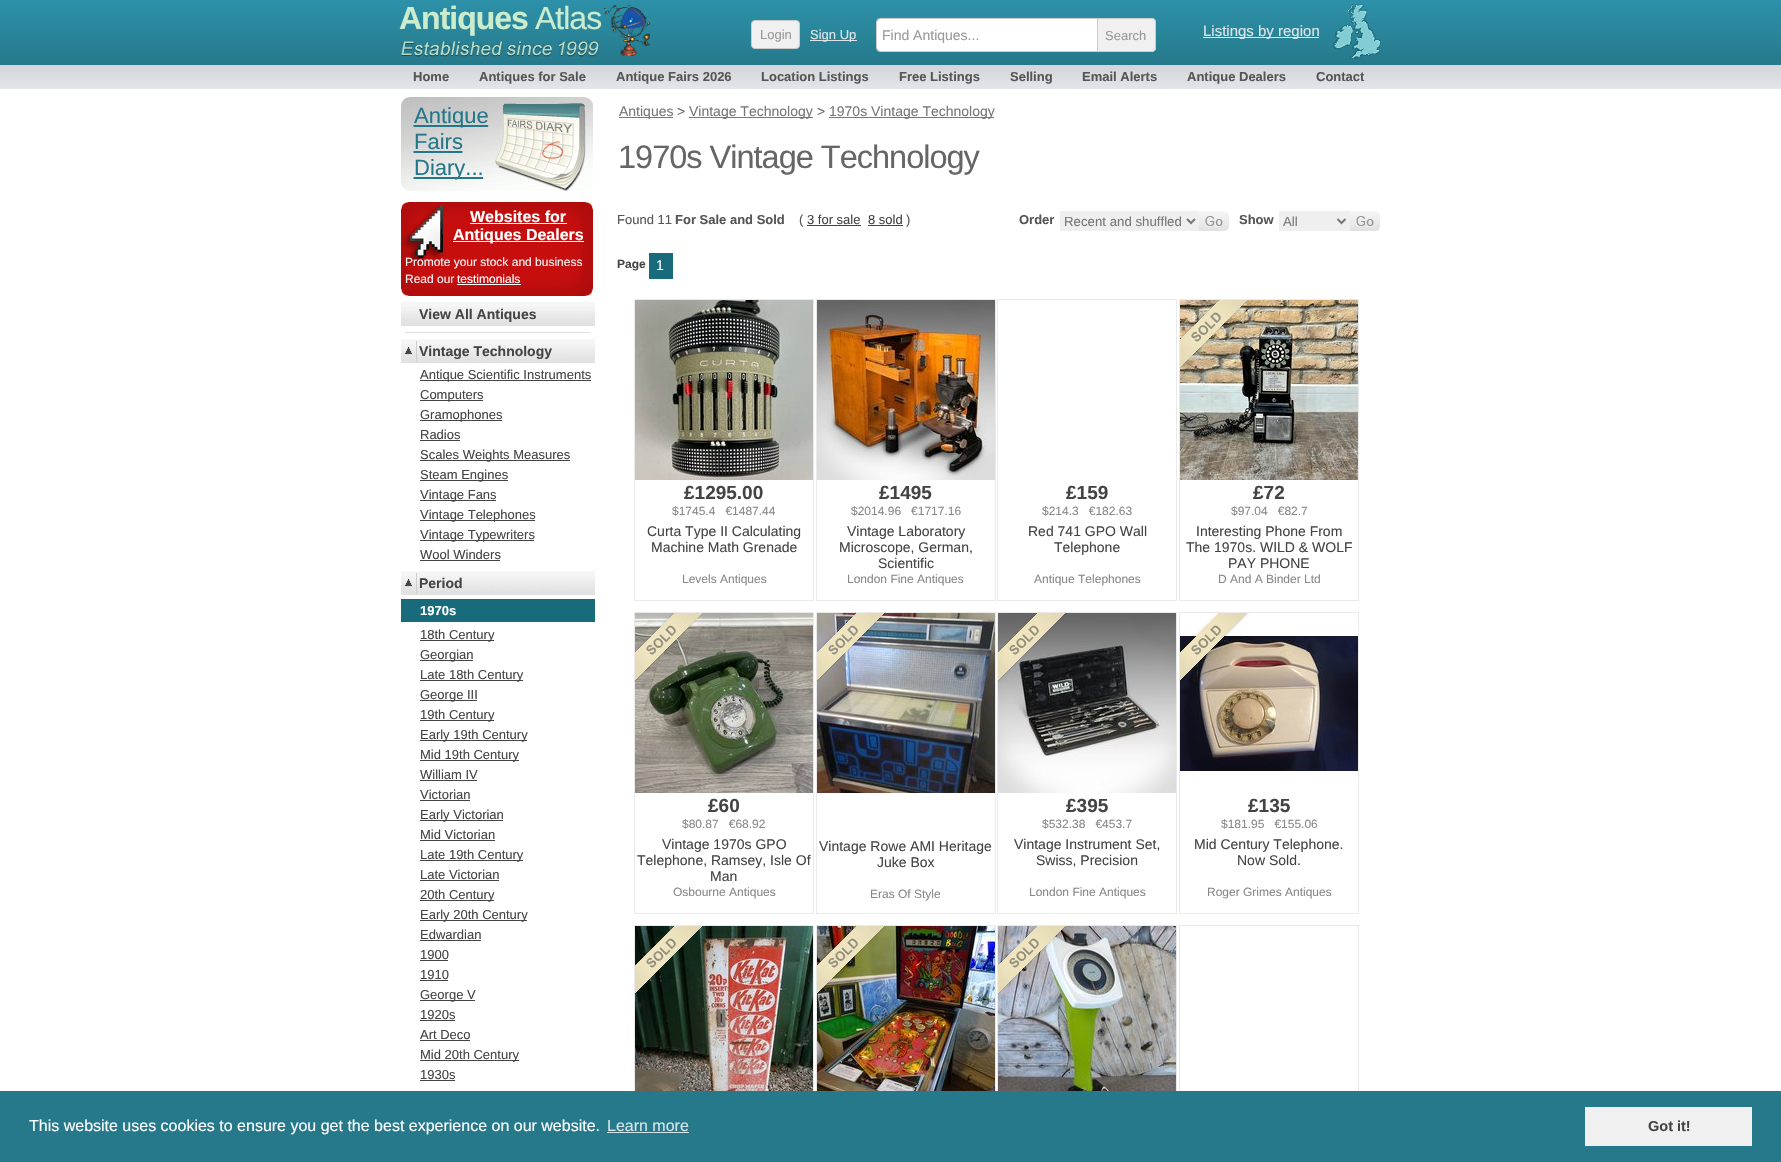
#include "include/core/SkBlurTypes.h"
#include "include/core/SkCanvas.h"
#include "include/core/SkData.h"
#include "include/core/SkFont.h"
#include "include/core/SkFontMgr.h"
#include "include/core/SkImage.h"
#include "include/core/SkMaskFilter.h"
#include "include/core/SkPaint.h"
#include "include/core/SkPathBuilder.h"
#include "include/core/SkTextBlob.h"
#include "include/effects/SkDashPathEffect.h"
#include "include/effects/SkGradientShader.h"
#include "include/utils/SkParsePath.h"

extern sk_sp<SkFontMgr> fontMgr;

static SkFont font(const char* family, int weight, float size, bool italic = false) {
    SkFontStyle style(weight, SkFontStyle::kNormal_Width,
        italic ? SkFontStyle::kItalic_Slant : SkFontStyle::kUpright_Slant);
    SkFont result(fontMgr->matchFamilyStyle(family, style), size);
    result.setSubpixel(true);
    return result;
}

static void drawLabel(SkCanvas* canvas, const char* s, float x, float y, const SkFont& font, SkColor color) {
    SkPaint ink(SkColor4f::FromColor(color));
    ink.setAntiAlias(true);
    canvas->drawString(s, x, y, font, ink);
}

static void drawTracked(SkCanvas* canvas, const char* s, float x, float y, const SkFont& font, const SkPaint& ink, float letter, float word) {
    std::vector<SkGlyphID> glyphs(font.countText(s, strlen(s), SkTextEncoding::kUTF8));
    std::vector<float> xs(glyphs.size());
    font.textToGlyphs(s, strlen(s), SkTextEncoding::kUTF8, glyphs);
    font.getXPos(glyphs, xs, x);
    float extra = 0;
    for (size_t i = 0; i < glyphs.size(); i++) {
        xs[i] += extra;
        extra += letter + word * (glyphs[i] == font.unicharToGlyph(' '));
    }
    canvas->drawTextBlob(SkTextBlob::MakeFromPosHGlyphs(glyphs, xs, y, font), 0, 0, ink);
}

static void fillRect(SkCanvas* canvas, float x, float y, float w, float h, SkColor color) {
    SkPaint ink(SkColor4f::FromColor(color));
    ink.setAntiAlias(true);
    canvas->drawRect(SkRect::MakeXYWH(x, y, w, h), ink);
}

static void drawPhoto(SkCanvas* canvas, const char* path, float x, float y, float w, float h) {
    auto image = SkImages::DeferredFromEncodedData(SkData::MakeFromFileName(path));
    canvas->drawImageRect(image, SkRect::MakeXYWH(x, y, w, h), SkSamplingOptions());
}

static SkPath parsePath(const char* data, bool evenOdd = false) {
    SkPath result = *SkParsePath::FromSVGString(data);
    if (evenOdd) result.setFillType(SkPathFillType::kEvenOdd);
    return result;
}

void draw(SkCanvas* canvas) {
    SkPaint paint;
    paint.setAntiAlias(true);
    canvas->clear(0xFFFFFFFF);
    {
        const SkColor colors[] = {0xFF2D91A9, 0xFF26798B, 0xFFD4D5DA, 0xFFE4E5EA};
        const float stops[] = {0, 0.73f, 0.73f, 1};
        const SkPoint ends[] = {{891, 0}, {891, 89}};
        paint.setShader(SkGradientShader::MakeLinear(ends, colors, stops, 4, SkTileMode::kClamp));
        paint.setAlpha(255);
    }
    canvas->drawRect(SkRect::MakeXYWH(0, 0, 1781, 89), paint);
    SkFont font1 = font("Liberation Sans", 700, 32);
    paint.setShader(nullptr);
    paint.setColor(0xFFCCECCE);
    drawTracked(canvas, "Antiques", 399, 29, font1, paint, -1, 0);
    SkFont font2 = font("Liberation Sans", 400, 32);
    drawTracked(canvas, "Atlas", 535, 29, font2, paint, -1, 0);
    drawPhoto(canvas, "assets/img1.png", 401, 41, 198, 16);
    drawPhoto(canvas, "assets/img2.png", 604, 5, 46, 51);
    paint.setColor(0xFFF0F0F0);
    canvas->drawRoundRect(SkRect::MakeXYWH(751.5f, 20.5f, 48, 28), 3.5f, 3.5f, paint);
    paint.setStroke(true);
    paint.setStrokeWidth(1);
    paint.setColor(0xFFCCCCCC);
    canvas->drawRoundRect(SkRect::MakeXYWH(751.5f, 20.5f, 48, 28), 3.5f, 3.5f, paint);
    SkFont font3 = font("Liberation Sans", 400, 13);
    drawLabel(canvas, "Login", 760, 39, font3, 0xFF999999);
    fillRect(canvas, 810, 40, 47, 1, 0xFFDCE5E7);
    drawLabel(canvas, "Sign Up", 810, 39, font3, 0xFFDCE5E7);
    paint.setStroke(false);
    paint.setColor(0xFFFFFFFF);
    canvas->drawPath(parsePath("M880 19H1097V51H880C878 51 877 50 877 48V22C877 20 878 19 880 19Z"), paint);
    paint.setStroke(true);
    paint.setColor(0xFFCCCCCC);
    canvas->drawRoundRect(SkRect::MakeXYWH(876.5f, 18.5f, 279, 33), 3.5f, 3.5f, paint);
    SkFont font4 = font("Liberation Sans", 400, 14);
    drawLabel(canvas, "Find Antiques...", 882, 40, font4, 0xFF999999);
    paint.setStroke(false);
    paint.setColor(0xFFF0F0F0);
    canvas->drawPath(parsePath("M1097.5 18.5H1152C1154 18.5 1155.5 20 1155.5 22V48C1155.5 50 1154 51.5 1152 51.5H1097.5Z"), paint);
    paint.setStroke(true);
    paint.setColor(0xFFCCCCCC);
    canvas->drawPath(parsePath("M1097.5 18.5H1152C1154 18.5 1155.5 20 1155.5 22V48C1155.5 50 1154 51.5 1152 51.5H1097.5Z"), paint);
    drawLabel(canvas, "Search", 1105, 40, font3, 0xFF999999);
    fillRect(canvas, 1203, 37, 116, 1, 0xFFDCE5E7);
    SkFont font5 = font("Liberation Sans", 400, 15);
    drawLabel(canvas, "Listings by region", 1203, 36, font5, 0xFFDCE5E7);
    drawPhoto(canvas, "assets/img3.png", 1333, 4, 48, 55);
    SkFont font6 = font("Liberation Sans", 700, 13);
    drawLabel(canvas, "Home", 413, 81, font6, 0xFF555555);
    drawLabel(canvas, "Antiques for Sale", 479, 81, font6, 0xFF555555);
    drawLabel(canvas, "Antique Fairs 2026", 616, 81, font6, 0xFF555555);
    drawLabel(canvas, "Location Listings", 761, 81, font6, 0xFF555555);
    drawLabel(canvas, "Free Listings", 899, 81, font6, 0xFF555555);
    drawLabel(canvas, "Selling", 1010, 81, font6, 0xFF555555);
    drawLabel(canvas, "Email Alerts", 1082, 81, font6, 0xFF555555);
    drawLabel(canvas, "Antique Dealers", 1187, 81, font6, 0xFF555555);
    drawLabel(canvas, "Contact", 1316, 81, font6, 0xFF555555);
    drawPhoto(canvas, "assets/img4.png", 401, 97, 192, 94);
    fillRect(canvas, 458, 125, 6, 2, 0xFF247788);
    SkFont font7 = font("Liberation Sans", 400, 22);
    drawLabel(canvas, "Antique", 414, 123, font7, 0xFF247788);
    drawLabel(canvas, "Fairs", 414, 149, font7, 0xFF247788);
    fillRect(canvas, 452, 177, 9, 2, 0xFF247788);
    drawLabel(canvas, "Diary...", 414, 175, font7, 0xFF247788);
    drawPhoto(canvas, "assets/img5.png", 401, 202, 192, 94);
    SkFont font8 = font("Liberation Sans", 700, 16);
    drawLabel(canvas, "Websites for", 470, 222, font8, 0xFFFFFFFF);
    fillRect(canvas, 470, 223, 97, 1, 0xFFFEFEFE);
    fillRect(canvas, 453, 241, 131, 1, 0xFFFEFEFE);
    drawLabel(canvas, "Antiques Dealers", 453, 240, font8, 0xFFFFFFFF);
    SkFont font9 = font("Liberation Sans", 400, 12);
    drawLabel(canvas, "Promote your stock and business", 405, 266, font9, 0xFFEFF4F4);
    drawLabel(canvas, "Read our", 405, 283, font9, 0xFFEFF4F4);
    drawLabel(canvas, "testimonials", 457, 283, font9, 0xFFFFFFFF);
    fillRect(canvas, 457, 284, 64, 1, 0xFFFEFEFE);
    drawPhoto(canvas, "assets/img6.png", 401, 302, 194, 24);
    SkFont font10 = font("Liberation Sans", 700, 14);
    drawLabel(canvas, "View All Antiques", 419, 319, font10, 0xFF444444);
    fillRect(canvas, 405, 332, 185, 1, 0xFFE0E0E0);
    drawPhoto(canvas, "assets/img6.png", 401, 339, 194, 24);
    drawPhoto(canvas, "assets/img7.png", 404, 341, 13, 20);
    drawLabel(canvas, "Vintage Technology", 419, 356, font10, 0xFF444444);
    fillRect(canvas, 420, 380, 171, 1, 0xFF444444);
    drawLabel(canvas, "Antique Scientific Instruments", 420, 379, font3, 0xFF444444);
    fillRect(canvas, 420, 400, 63, 1, 0xFF444444);
    drawLabel(canvas, "Computers", 420, 399, font3, 0xFF444444);
    fillRect(canvas, 420, 420, 82, 1, 0xFF444444);
    drawLabel(canvas, "Gramophones", 420, 419, font3, 0xFF444444);
    drawLabel(canvas, "Radios", 420, 439, font3, 0xFF444444);
    fillRect(canvas, 420, 440, 40, 1, 0xFF444444);
    fillRect(canvas, 420, 460, 150, 1, 0xFF444444);
    drawLabel(canvas, "Scales Weights Measures", 420, 459, font3, 0xFF444444);
    fillRect(canvas, 420, 480, 88, 1, 0xFF444444);
    drawLabel(canvas, "Steam Engines", 420, 479, font3, 0xFF444444);
    fillRect(canvas, 420, 500, 76, 1, 0xFF444444);
    drawLabel(canvas, "Vintage Fans", 420, 499, font3, 0xFF444444);
    fillRect(canvas, 420, 520, 115, 1, 0xFF444444);
    drawLabel(canvas, "Vintage Telephones", 420, 519, font3, 0xFF444444);
    fillRect(canvas, 420, 540, 114, 1, 0xFF444444);
    drawLabel(canvas, "Vintage Typewriters", 420, 539, font3, 0xFF444444);
    drawLabel(canvas, "Wool Winders", 420, 559, font3, 0xFF444444);
    fillRect(canvas, 420, 560, 80, 1, 0xFF444444);
    drawPhoto(canvas, "assets/img6.png", 401, 571, 194, 24);
    drawPhoto(canvas, "assets/img7.png", 404, 573, 13, 20);
    drawLabel(canvas, "Period", 419, 588, font10, 0xFF444444);
    fillRect(canvas, 401, 599, 194, 23, 0xFF186B7B);
    drawLabel(canvas, "1970s", 420, 615, font6, 0xFFFFFFFF);
    fillRect(canvas, 420, 640, 74, 1, 0xFF444444);
    drawLabel(canvas, "18th Century", 420, 639, font3, 0xFF444444);
    fillRect(canvas, 420, 660, 53, 1, 0xFF444444);
    drawLabel(canvas, "Georgian", 420, 659, font3, 0xFF444444);
    fillRect(canvas, 420, 680, 103, 1, 0xFF444444);
    drawLabel(canvas, "Late 18th Century", 420, 679, font3, 0xFF444444);
    fillRect(canvas, 420, 700, 57, 1, 0xFF444444);
    drawLabel(canvas, "George III", 420, 699, font3, 0xFF444444);
    fillRect(canvas, 420, 720, 74, 1, 0xFF444444);
    drawLabel(canvas, "19th Century", 420, 719, font3, 0xFF444444);
    fillRect(canvas, 420, 740, 107, 1, 0xFF444444);
    drawLabel(canvas, "Early 19th Century", 420, 739, font3, 0xFF444444);
    fillRect(canvas, 420, 760, 99, 1, 0xFF444444);
    drawLabel(canvas, "Mid 19th Century", 420, 759, font3, 0xFF444444);
    drawLabel(canvas, "William IV", 420, 779, font3, 0xFF444444);
    fillRect(canvas, 420, 780, 57, 1, 0xFF444444);
    drawLabel(canvas, "Victorian", 420, 799, font3, 0xFF444444);
    fillRect(canvas, 420, 800, 50, 1, 0xFF444444);
    fillRect(canvas, 420, 820, 83, 1, 0xFF444444);
    drawLabel(canvas, "Early Victorian", 420, 819, font3, 0xFF444444);
    drawLabel(canvas, "Mid Victorian", 420, 839, font3, 0xFF444444);
    fillRect(canvas, 420, 840, 75, 1, 0xFF444444);
    fillRect(canvas, 420, 860, 103, 1, 0xFF444444);
    drawLabel(canvas, "Late 19th Century", 420, 859, font3, 0xFF444444);
    drawLabel(canvas, "Late Victorian", 420, 879, font3, 0xFF444444);
    fillRect(canvas, 420, 880, 79, 1, 0xFF444444);
    fillRect(canvas, 420, 900, 74, 1, 0xFF444444);
    drawLabel(canvas, "20th Century", 420, 899, font3, 0xFF444444);
    fillRect(canvas, 420, 920, 107, 1, 0xFF444444);
    drawLabel(canvas, "Early 20th Century", 420, 919, font3, 0xFF444444);
    drawLabel(canvas, "Edwardian", 420, 939, font3, 0xFF444444);
    fillRect(canvas, 420, 940, 61, 1, 0xFF444444);
    drawLabel(canvas, "1900", 420, 959, font3, 0xFF444444);
    fillRect(canvas, 420, 960, 28, 1, 0xFF444444);
    drawLabel(canvas, "1910", 420, 979, font3, 0xFF444444);
    fillRect(canvas, 420, 980, 28, 1, 0xFF444444);
    fillRect(canvas, 420, 1000, 55, 1, 0xFF444444);
    drawLabel(canvas, "George V", 420, 999, font3, 0xFF444444);
    drawLabel(canvas, "1920s", 420, 1019, font3, 0xFF444444);
    fillRect(canvas, 420, 1020, 35, 1, 0xFF444444);
    drawLabel(canvas, "Art Deco", 420, 1039, font3, 0xFF444444);
    fillRect(canvas, 420, 1040, 50, 1, 0xFF444444);
    fillRect(canvas, 420, 1060, 99, 1, 0xFF444444);
    drawLabel(canvas, "Mid 20th Century", 420, 1059, font3, 0xFF444444);
    drawLabel(canvas, "1930s", 420, 1079, font3, 0xFF444444);
    fillRect(canvas, 420, 1080, 35, 1, 0xFF444444);
    fillRect(canvas, 619, 117, 54, 1, 0xFF777777);
    drawLabel(canvas, "Antiques", 619, 116, font4, 0xFF777777);
    drawLabel(canvas, ">", 677, 116, font4, 0xFF666666);
    fillRect(canvas, 689, 117, 124, 1, 0xFF777777);
    drawLabel(canvas, "Vintage Technology", 689, 116, font4, 0xFF777777);
    drawLabel(canvas, ">", 817, 116, font4, 0xFF666666);
    fillRect(canvas, 829, 117, 165, 1, 0xFF777777);
    drawLabel(canvas, "1970s Vintage Technology", 829, 116, font4, 0xFF777777);
    SkFont font11 = font("Liberation Sans", 400, 32.5f);
    paint.setStroke(false);
    paint.setColor(0xFF666666);
    drawTracked(canvas, "1970s Vintage Technology", 618, 168, font11, paint, -1, 0);
    drawLabel(canvas, "Found 11", 617, 224, font3, 0xFF555555);
    drawLabel(canvas, "For Sale and Sold", 675, 224, font6, 0xFF555555);
    drawLabel(canvas, "(", 799, 224, font3, 0xFF555555);
    drawLabel(canvas, "3 for sale", 807, 224, font3, 0xFF444444);
    fillRect(canvas, 807, 225, 54, 1, 0xFF444444);
    drawLabel(canvas, "8 sold", 868, 224, font3, 0xFF444444);
    fillRect(canvas, 868, 225, 35, 1, 0xFF444444);
    drawLabel(canvas, ")", 906, 224, font3, 0xFF555555);
    drawLabel(canvas, "Order", 1019, 224, font6, 0xFF555555);
    fillRect(canvas, 1060, 211, 139, 20, 0xFFEFEFEF);
    paint.setStroke(true);
    paint.setStrokeWidth(2);
    paint.setColor(0xFF777777);
    canvas->drawPath(parsePath("M1187 219L1191 223L1195 219"), paint);
    SkFont font12 = font("Liberation Sans", 400, 13.25f);
    drawLabel(canvas, "Recent and shuffled", 1064, 226, font12, 0xFF777777);
    drawPhoto(canvas, "assets/img8.png", 1199, 211, 30, 20);
    drawLabel(canvas, "Show", 1239, 224, font6, 0xFF555555);
    fillRect(canvas, 1279, 211, 71, 20, 0xFFEFEFEF);
    canvas->drawPath(parsePath("M1337.5 219L1341.5 223L1345.5 219"), paint);
    drawLabel(canvas, "All", 1283, 226, font12, 0xFF777777);
    drawPhoto(canvas, "assets/img8.png", 1350, 211, 30, 20);
    SkFont font13 = font("Liberation Sans", 700, 12);
    drawLabel(canvas, "Page", 617, 268, font13, 0xFF444444);
    fillRect(canvas, 649, 253, 24, 26, 0xFF186B7B);
    drawLabel(canvas, "1", 656, 270, font4, 0xFFFFFFFF);
    paint.setStrokeWidth(1);
    paint.setColor(0xFFEAEAEA);
    canvas->drawRect(SkRect::MakeXYWH(634.5f, 299.5f, 179, 301), paint);
    drawPhoto(canvas, "assets/img9.png", 635, 300, 178, 180);
    SkFont font14 = font("Liberation Sans", 700, 19);
    drawLabel(canvas, "£1295.00", 684, 499, font14, 0xFF444444);
    drawLabel(canvas, "$1745.4   €1487.44", 672, 515, font9, 0xFF888888);
    drawLabel(canvas, "Curta Type II Calculating", 647, 536, font4, 0xFF444444);
    drawLabel(canvas, "Machine Math Grenade", 651, 552, font4, 0xFF444444);
    drawLabel(canvas, "Levels Antiques", 682, 583, font9, 0xFF888888);
    canvas->drawRect(SkRect::MakeXYWH(816.5f, 299.5f, 179, 301), paint);
    drawPhoto(canvas, "assets/img10.png", 817, 300, 178, 180);
    drawLabel(canvas, "£1495", 879, 499, font14, 0xFF444444);
    drawLabel(canvas, "$2014.96   €1717.16", 851, 515, font9, 0xFF888888);
    drawLabel(canvas, "Vintage Laboratory", 847, 536, font4, 0xFF444444);
    drawLabel(canvas, "Microscope, German,", 839, 552, font4, 0xFF444444);
    drawLabel(canvas, "Scientific", 878, 568, font4, 0xFF444444);
    drawLabel(canvas, "London Fine Antiques", 847, 583, font9, 0xFF888888);
    canvas->drawRect(SkRect::MakeXYWH(997.5f, 299.5f, 179, 301), paint);
    drawLabel(canvas, "£159", 1066, 499, font14, 0xFF444444);
    drawLabel(canvas, "$214.3   €182.63", 1042, 515, font9, 0xFF888888);
    drawLabel(canvas, "Red 741 GPO Wall", 1028, 536, font4, 0xFF444444);
    drawLabel(canvas, "Telephone", 1054, 552, font4, 0xFF444444);
    drawLabel(canvas, "Antique Telephones", 1034, 583, font9, 0xFF888888);
    canvas->drawRect(SkRect::MakeXYWH(1179.5f, 299.5f, 179, 301), paint);
    drawPhoto(canvas, "assets/img11.png", 1180, 300, 178, 180);
    drawPhoto(canvas, "assets/img12.png", 1180, 300, 69, 69);
    drawLabel(canvas, "£72", 1253, 499, font14, 0xFF444444);
    drawLabel(canvas, "$97.04   €82.7", 1231, 515, font9, 0xFF888888);
    drawLabel(canvas, "Interesting Phone From", 1196, 536, font4, 0xFF444444);
    drawLabel(canvas, "The 1970s. WILD & WOLF", 1186, 552, font4, 0xFF444444);
    drawLabel(canvas, "PAY PHONE", 1228, 568, font4, 0xFF444444);
    drawLabel(canvas, "D And A Binder Ltd", 1218, 583, font9, 0xFF888888);
    canvas->drawRect(SkRect::MakeXYWH(634.5f, 612.5f, 179, 301), paint);
    drawPhoto(canvas, "assets/img13.png", 635, 613, 178, 180);
    drawPhoto(canvas, "assets/img14.png", 635, 613, 69, 69);
    drawLabel(canvas, "£60", 708, 812, font14, 0xFF444444);
    drawLabel(canvas, "$80.87   €68.92", 682, 828, font9, 0xFF888888);
    drawLabel(canvas, "Vintage 1970s GPO", 662, 849, font4, 0xFF444444);
    drawLabel(canvas, "Telephone, Ramsey, Isle Of", 637, 865, font4, 0xFF444444);
    drawLabel(canvas, "Man", 710, 881, font4, 0xFF444444);
    drawLabel(canvas, "Osbourne Antiques", 673, 896, font9, 0xFF888888);
    canvas->drawRect(SkRect::MakeXYWH(816.5f, 612.5f, 179, 301), paint);
    drawPhoto(canvas, "assets/img15.png", 817, 613, 178, 180);
    drawPhoto(canvas, "assets/img16.png", 817, 613, 69, 69);
    drawLabel(canvas, "Vintage Rowe AMI Heritage", 819, 851, font4, 0xFF444444);
    drawLabel(canvas, "Juke Box", 877, 867, font4, 0xFF444444);
    drawLabel(canvas, "Eras Of Style", 870, 898, font9, 0xFF888888);
    canvas->drawRect(SkRect::MakeXYWH(997.5f, 612.5f, 179, 301), paint);
    drawPhoto(canvas, "assets/img17.png", 998, 613, 178, 180);
    drawPhoto(canvas, "assets/img18.png", 998, 613, 69, 69);
    drawLabel(canvas, "£395", 1066, 812, font14, 0xFF444444);
    drawLabel(canvas, "$532.38   €453.7", 1042, 828, font9, 0xFF888888);
    drawLabel(canvas, "Vintage Instrument Set,", 1014, 849, font4, 0xFF444444);
    drawLabel(canvas, "Swiss, Precision", 1036, 865, font4, 0xFF444444);
    drawLabel(canvas, "London Fine Antiques", 1029, 896, font9, 0xFF888888);
    canvas->drawRect(SkRect::MakeXYWH(1179.5f, 612.5f, 179, 301), paint);
    drawPhoto(canvas, "assets/img20.png", 1180, 636, 178, 135);
    drawPhoto(canvas, "assets/img19.png", 1180, 613, 69, 68);
    drawLabel(canvas, "£135", 1248, 812, font14, 0xFF444444);
    drawLabel(canvas, "$181.95   €155.06", 1221, 828, font9, 0xFF888888);
    drawLabel(canvas, "Mid Century Telephone.", 1194, 849, font4, 0xFF444444);
    drawLabel(canvas, "Now Sold.", 1237, 865, font4, 0xFF444444);
    drawLabel(canvas, "Roger Grimes Antiques", 1207, 896, font9, 0xFF888888);
    canvas->drawRect(SkRect::MakeXYWH(634.5f, 925.5f, 179, 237), paint);
    drawPhoto(canvas, "assets/img21.png", 635, 926, 178, 165);
    drawPhoto(canvas, "assets/img22.png", 635, 926, 68, 68);
    canvas->drawRect(SkRect::MakeXYWH(816.5f, 925.5f, 179, 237), paint);
    drawPhoto(canvas, "assets/img23.png", 817, 926, 178, 165);
    drawPhoto(canvas, "assets/img24.png", 817, 926, 69, 68);
    canvas->drawRect(SkRect::MakeXYWH(997.5f, 925.5f, 179, 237), paint);
    drawPhoto(canvas, "assets/img25.png", 998, 926, 178, 165);
    drawPhoto(canvas, "assets/img26.png", 998, 926, 69, 69);
    canvas->drawRect(SkRect::MakeXYWH(1179.5f, 925.5f, 179, 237), paint);
    fillRect(canvas, 0, 1091, 1781, 71, 0xFF26798B);
    SkFont font15 = font("Liberation Sans", 400, 16);
    drawLabel(canvas, "This website uses cookies to ensure you get the best experience on our website.", 29, 1131, font15, 0xFFFFFFFF);
    drawLabel(canvas, "Learn more", 607, 1131, font15, 0xFFD4E4E8);
    fillRect(canvas, 607, 1132, 82, 1, 0xFFD4E4E8);
    fillRect(canvas, 1585, 1107, 167, 39, 0xFFF0F0F0);
    SkFont font16 = font("Liberation Sans", 700, 14.5f);
    drawLabel(canvas, "Got it!", 1648, 1131, font16, 0xFF444444);
}
